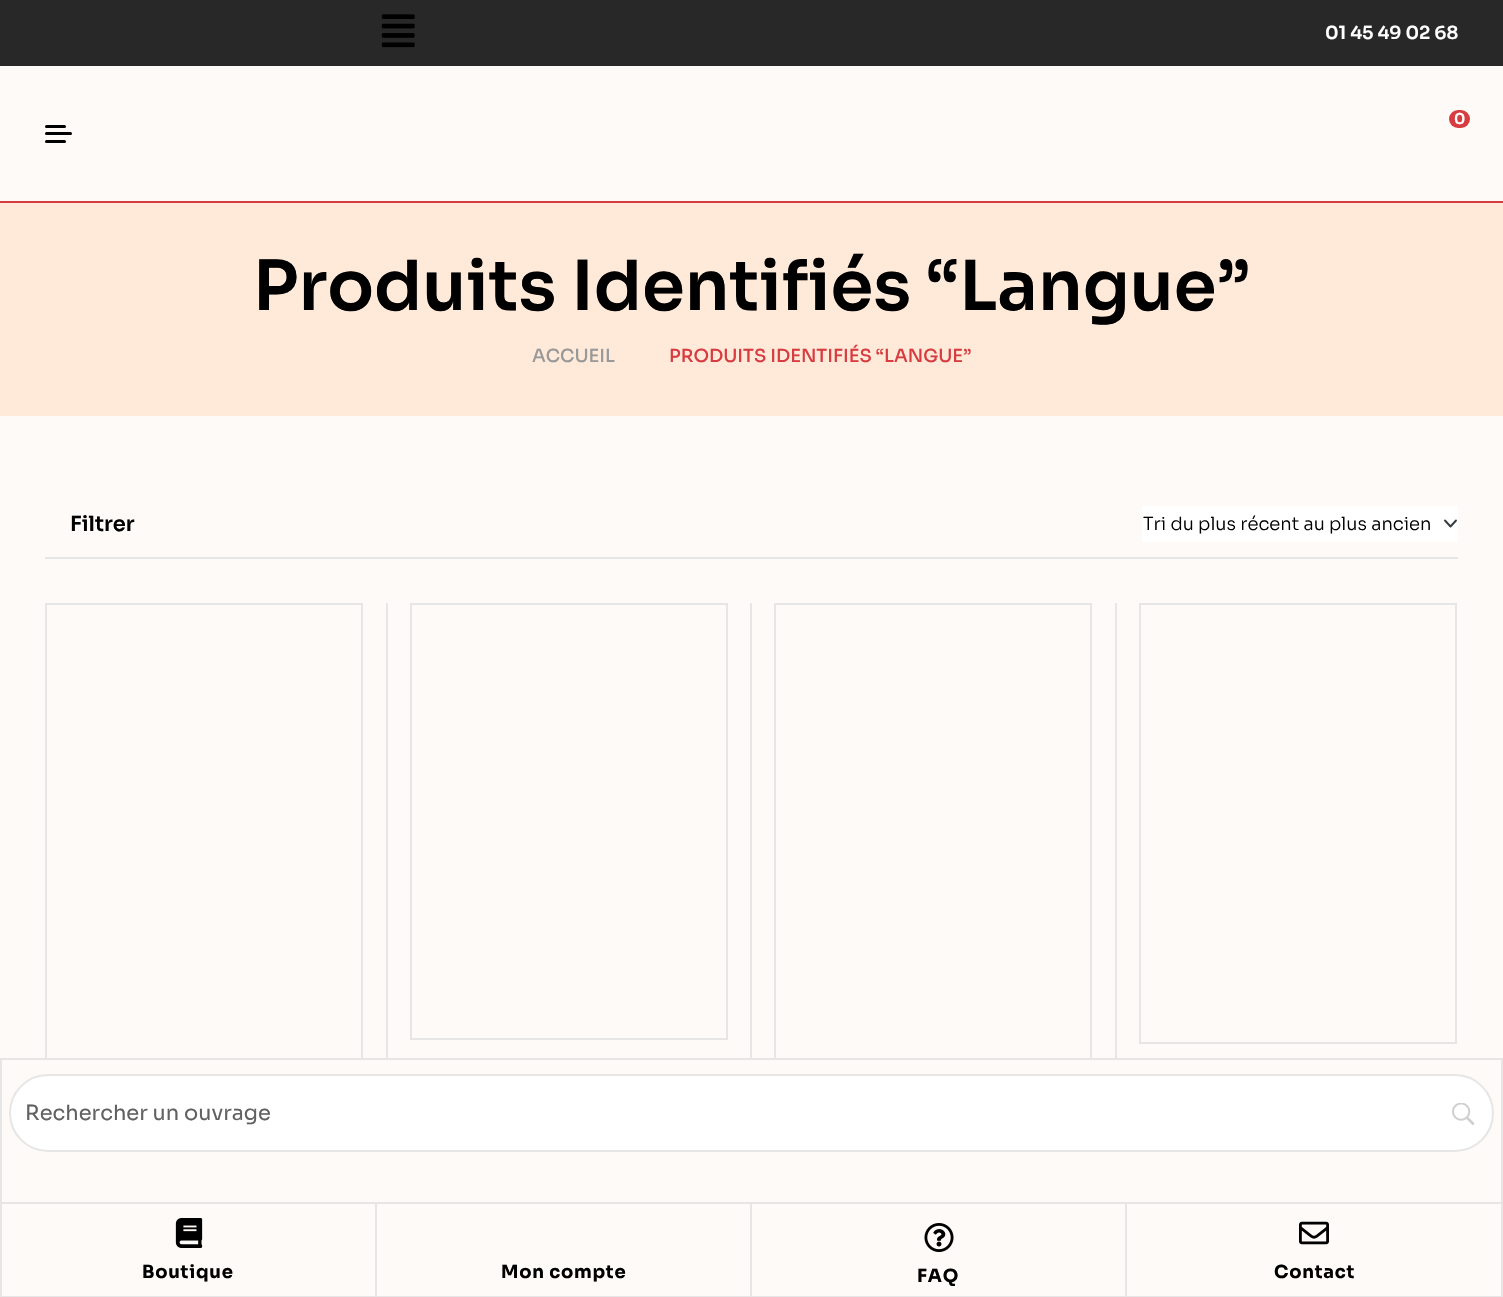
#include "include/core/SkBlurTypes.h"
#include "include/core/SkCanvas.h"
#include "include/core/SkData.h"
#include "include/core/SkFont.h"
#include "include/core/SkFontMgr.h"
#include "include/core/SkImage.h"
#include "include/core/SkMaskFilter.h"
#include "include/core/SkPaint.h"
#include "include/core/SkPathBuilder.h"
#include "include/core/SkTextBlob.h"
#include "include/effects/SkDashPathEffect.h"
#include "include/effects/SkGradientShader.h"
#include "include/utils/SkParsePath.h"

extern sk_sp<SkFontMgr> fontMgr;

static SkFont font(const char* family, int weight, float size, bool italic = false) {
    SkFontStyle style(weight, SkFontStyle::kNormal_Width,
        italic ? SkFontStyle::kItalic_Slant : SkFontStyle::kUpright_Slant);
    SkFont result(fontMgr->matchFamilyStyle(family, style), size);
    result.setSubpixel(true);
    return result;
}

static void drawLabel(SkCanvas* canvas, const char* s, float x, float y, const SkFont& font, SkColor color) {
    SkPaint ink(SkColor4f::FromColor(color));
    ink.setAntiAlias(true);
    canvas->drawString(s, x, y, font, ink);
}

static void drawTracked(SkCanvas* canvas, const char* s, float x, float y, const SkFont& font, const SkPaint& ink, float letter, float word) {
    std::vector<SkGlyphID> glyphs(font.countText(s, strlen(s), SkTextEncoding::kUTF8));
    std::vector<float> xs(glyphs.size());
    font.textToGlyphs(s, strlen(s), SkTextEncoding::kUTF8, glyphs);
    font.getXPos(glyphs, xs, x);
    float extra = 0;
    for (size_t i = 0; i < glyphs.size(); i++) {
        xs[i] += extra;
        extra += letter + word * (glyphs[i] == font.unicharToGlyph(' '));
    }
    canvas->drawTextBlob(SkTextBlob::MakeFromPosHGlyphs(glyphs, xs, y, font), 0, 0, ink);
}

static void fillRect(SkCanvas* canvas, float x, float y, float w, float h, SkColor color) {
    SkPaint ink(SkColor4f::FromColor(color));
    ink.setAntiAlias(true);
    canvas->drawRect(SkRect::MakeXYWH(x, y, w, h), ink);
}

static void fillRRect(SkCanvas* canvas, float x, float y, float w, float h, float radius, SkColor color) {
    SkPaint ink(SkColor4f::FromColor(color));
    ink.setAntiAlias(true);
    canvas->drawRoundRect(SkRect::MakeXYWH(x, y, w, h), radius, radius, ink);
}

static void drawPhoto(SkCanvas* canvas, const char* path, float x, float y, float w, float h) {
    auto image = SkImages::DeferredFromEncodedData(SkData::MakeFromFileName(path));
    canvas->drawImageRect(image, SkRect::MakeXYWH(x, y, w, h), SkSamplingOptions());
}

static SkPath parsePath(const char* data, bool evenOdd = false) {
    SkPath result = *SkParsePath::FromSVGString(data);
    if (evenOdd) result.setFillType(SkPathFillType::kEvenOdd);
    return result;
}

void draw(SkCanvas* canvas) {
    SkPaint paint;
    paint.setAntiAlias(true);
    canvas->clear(0xFFFDFAF7);
    fillRect(canvas, 0, 0, 1503, 66, 0xFF282828);
    drawPhoto(canvas, "assets/img1.png", 381, 14, 34, 34);
    SkFont font1 = font("Sora", 600, 18);
    drawLabel(canvas, "01 45 49 02 68", 1325, 39, font1, 0xFFFFFFFF);
    fillRRect(canvas, 1449, 110, 21, 18, 9, 0xFFD73C41);
    SkFont font2 = font("Sora", 600, 15);
    drawLabel(canvas, "0", 1454, 124, font2, 0xFFFFFFFF);
    fillRRect(canvas, 45, 125, 21, 3, 1.5f, 0xFF000000);
    fillRRect(canvas, 45, 132, 27, 3, 1.5f, 0xFF000000);
    fillRRect(canvas, 45, 140, 21, 3, 1.5f, 0xFF000000);
    fillRect(canvas, 0, 201, 1503, 2, 0xFFD73C41);
    fillRect(canvas, 0, 203, 1503, 213, 0xFFFFEAD9);
    SkFont font3 = font("Sora", 600, 69);
    drawLabel(canvas, "Produits Identifiés “Langue”", 253, 310, font3, 0xFF000000);
    SkFont font4 = font("Sora", 500, 18);
    drawLabel(canvas, "ACCUEIL", 532, 362, font4, 0xFF999999);
    drawLabel(canvas, "PRODUITS IDENTIFIÉS “LANGUE”", 669, 362, font4, 0xFFD73C41);
    fillRect(canvas, 45, 557, 1413, 2, 0xFFE6E6E6);
    SkFont font5 = font("Sora", 600, 21);
    drawLabel(canvas, "Filtrer", 70, 531, font5, 0xFF000000);
    fillRect(canvas, 1142, 506, 316, 36, 0xFFFFFFFF);
    paint.setStroke(true);
    paint.setStrokeWidth(1.9f);
    paint.setStrokeCap(SkPaint::kRound_Cap);
    paint.setStrokeJoin(SkPaint::kRound_Join);
    paint.setColor(0xFF343A40);
    canvas->drawPath(parsePath("M1445 520.5L1450.5 526.5L1456 520.5"), paint);
    SkFont font6 = font("Sora", 300, 18);
    drawLabel(canvas, "Tri du plus récent au plus ancien", 1143, 530, font6, 0xFF000000);
    fillRect(canvas, 386, 603, 2, 455, 0xFFE6E6E6);
    paint.setStrokeWidth(2);
    paint.setStrokeCap(SkPaint::kButt_Cap);
    paint.setStrokeJoin(SkPaint::kMiter_Join);
    paint.setColor(0xFFE6E6E6);
    canvas->drawRect(SkRect::MakeXYWH(46, 604, 316, 486), paint);
    fillRect(canvas, 750, 603, 2, 455, 0xFFE6E6E6);
    canvas->drawRect(SkRect::MakeXYWH(411, 604, 316, 435), paint);
    fillRect(canvas, 1115, 603, 2, 455, 0xFFE6E6E6);
    canvas->drawRect(SkRect::MakeXYWH(775, 604, 316, 540), paint);
    canvas->drawRect(SkRect::MakeXYWH(1140, 604, 316, 439), paint);
    fillRect(canvas, 45, 1060, 1047, 85, 0xFFFDFAF7);
    canvas->drawRect(SkRect::MakeXYWH(1, 1059, 1501, 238), paint);
    fillRRect(canvas, 9, 1074, 1485, 78, 39, 0xFFFFFFFF);
    drawPhoto(canvas, "assets/img2.png", 1452, 1103, 23, 22);
    canvas->drawRoundRect(SkRect::MakeXYWH(10, 1075, 1483, 76), 38, 38, paint);
    SkFont font7 = font("Sora", 400, 21);
    drawLabel(canvas, "Rechercher un ouvrage", 25, 1120, font7, 0xFF616161);
    fillRect(canvas, 2, 1202, 1500, 2, 0xFFE6E6E6);
    fillRect(canvas, 375, 1202, 2, 94, 0xFFE6E6E6);
    drawPhoto(canvas, "assets/img3.png", 175, 1218, 28, 30);
    SkFont font8 = font("Sora", 700, 18);
    paint.setStroke(false);
    paint.setColor(0xFF000000);
    drawTracked(canvas, "Boutique", 142, 1278, font8, paint, 0.75f, 0);
    fillRect(canvas, 750, 1202, 2, 94, 0xFFE6E6E6);
    drawTracked(canvas, "Mon compte", 501, 1278, font8, paint, 0.75f, 0);
    fillRect(canvas, 1125, 1202, 2, 94, 0xFFE6E6E6);
    drawPhoto(canvas, "assets/img4.png", 924, 1223, 30, 29);
    drawTracked(canvas, "FAQ", 917, 1282, font8, paint, 0.75f, 0);
    drawPhoto(canvas, "assets/img5.png", 1299, 1221, 30, 24);
    drawTracked(canvas, "Contact", 1274, 1278, font8, paint, 0.75f, 0);
}
